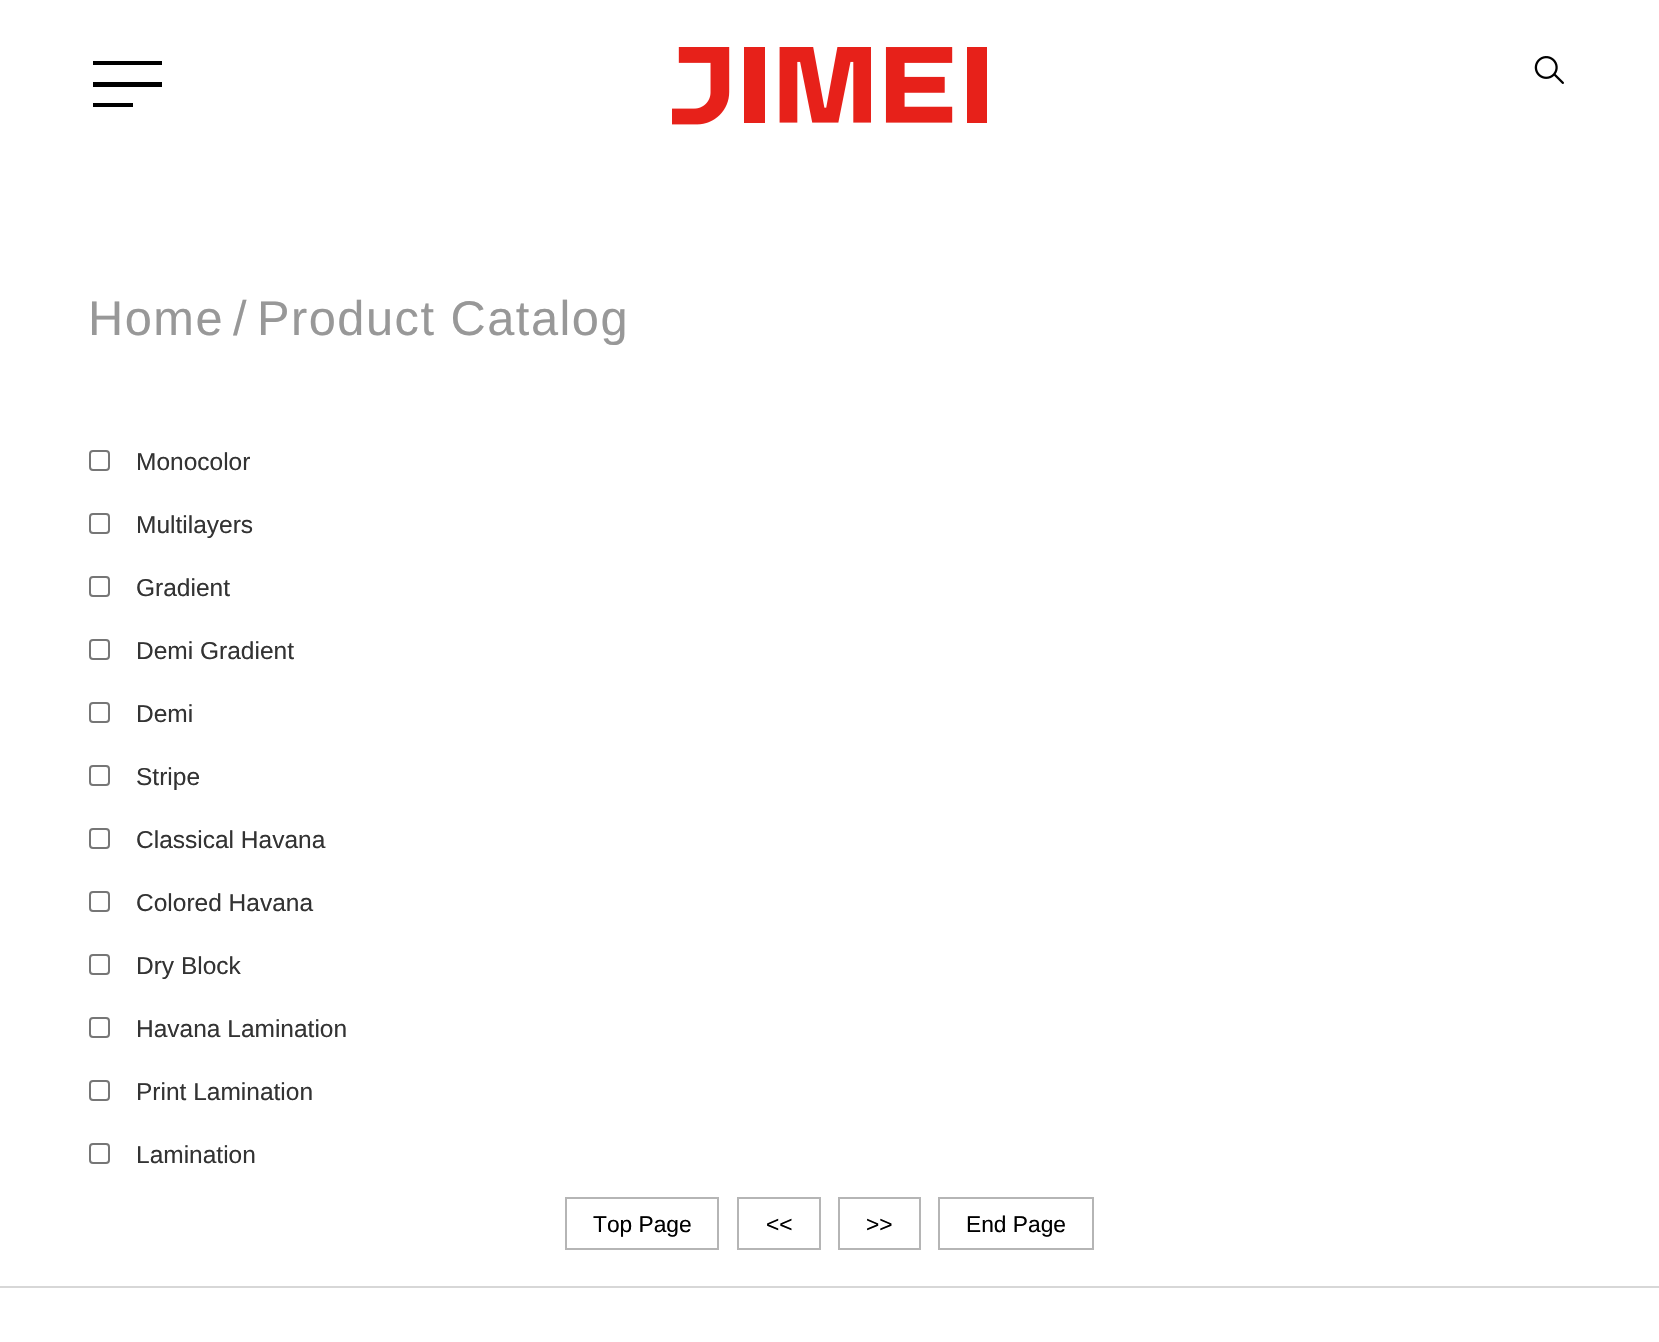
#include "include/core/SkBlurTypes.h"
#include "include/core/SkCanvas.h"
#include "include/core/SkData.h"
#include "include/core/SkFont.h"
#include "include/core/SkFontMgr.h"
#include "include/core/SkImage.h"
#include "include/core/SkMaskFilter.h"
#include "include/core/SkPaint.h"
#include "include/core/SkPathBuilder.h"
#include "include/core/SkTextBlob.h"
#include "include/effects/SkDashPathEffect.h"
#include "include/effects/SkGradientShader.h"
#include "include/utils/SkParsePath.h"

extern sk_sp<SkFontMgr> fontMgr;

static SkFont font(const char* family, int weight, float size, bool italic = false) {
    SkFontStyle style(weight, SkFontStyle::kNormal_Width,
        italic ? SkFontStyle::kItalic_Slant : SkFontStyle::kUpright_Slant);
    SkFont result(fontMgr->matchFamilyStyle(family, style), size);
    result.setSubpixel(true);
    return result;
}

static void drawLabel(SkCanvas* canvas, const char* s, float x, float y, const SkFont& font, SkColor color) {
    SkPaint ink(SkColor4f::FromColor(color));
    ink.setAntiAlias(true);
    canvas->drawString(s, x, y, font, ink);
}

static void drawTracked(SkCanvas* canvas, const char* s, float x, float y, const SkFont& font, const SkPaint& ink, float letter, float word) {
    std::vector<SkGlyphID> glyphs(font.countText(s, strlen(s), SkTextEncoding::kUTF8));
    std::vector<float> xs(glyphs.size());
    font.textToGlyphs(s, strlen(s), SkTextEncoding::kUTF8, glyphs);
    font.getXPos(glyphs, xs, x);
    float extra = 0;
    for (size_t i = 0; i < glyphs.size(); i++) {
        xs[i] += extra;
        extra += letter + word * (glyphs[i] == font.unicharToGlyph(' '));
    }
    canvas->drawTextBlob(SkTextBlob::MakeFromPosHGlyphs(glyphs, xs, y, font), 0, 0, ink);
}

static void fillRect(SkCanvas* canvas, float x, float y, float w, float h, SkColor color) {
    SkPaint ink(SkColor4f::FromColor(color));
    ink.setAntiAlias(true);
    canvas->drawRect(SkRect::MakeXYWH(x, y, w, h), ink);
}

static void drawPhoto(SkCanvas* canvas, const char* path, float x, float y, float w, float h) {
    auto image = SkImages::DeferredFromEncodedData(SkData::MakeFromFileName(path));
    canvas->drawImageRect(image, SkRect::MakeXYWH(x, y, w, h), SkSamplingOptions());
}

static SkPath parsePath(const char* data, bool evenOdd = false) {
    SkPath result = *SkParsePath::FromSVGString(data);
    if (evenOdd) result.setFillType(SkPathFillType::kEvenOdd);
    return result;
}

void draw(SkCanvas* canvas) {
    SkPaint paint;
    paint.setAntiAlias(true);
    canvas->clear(0xFFFFFFFF);
    paint.setColor(0xFF000000);
    canvas->drawPath(parsePath("M93 61H162V65H93ZM93 82H162V87H93ZM93 103H133V107H93Z"), paint);
    drawPhoto(canvas, "assets/img1.png", 672, 47, 315, 78);
    drawPhoto(canvas, "assets/img2.png", 1534, 56, 30, 28);
    SkFont font1 = font("Liberation Sans", 400, 48.75f);
    paint.setColor(0xFF989898);
    drawTracked(canvas, "Home", 88, 335, font1, paint, 1.5f, 0);
    drawTracked(canvas, "/", 233, 335, font1, paint, 1.5f, 0);
    drawTracked(canvas, "Product Catalog", 257, 335, font1, paint, 1.5f, 0);
    paint.setStroke(true);
    paint.setStrokeWidth(2);
    paint.setColor(0xFF767676);
    canvas->drawRoundRect(SkRect::MakeXYWH(90, 451, 19, 19), 3, 3, paint);
    SkFont font2 = font("Liberation Sans", 400, 24.5f);
    drawLabel(canvas, "Monocolor", 136, 470, font2, 0xFF333333);
    canvas->drawRoundRect(SkRect::MakeXYWH(90, 514, 19, 19), 3, 3, paint);
    drawLabel(canvas, "Multilayers", 136, 533, font2, 0xFF333333);
    canvas->drawRoundRect(SkRect::MakeXYWH(90, 577, 19, 19), 3, 3, paint);
    drawLabel(canvas, "Gradient", 136, 596, font2, 0xFF333333);
    canvas->drawRoundRect(SkRect::MakeXYWH(90, 640, 19, 19), 3, 3, paint);
    drawLabel(canvas, "Demi Gradient", 136, 659, font2, 0xFF333333);
    canvas->drawRoundRect(SkRect::MakeXYWH(90, 703, 19, 19), 3, 3, paint);
    drawLabel(canvas, "Demi", 136, 722, font2, 0xFF333333);
    canvas->drawRoundRect(SkRect::MakeXYWH(90, 766, 19, 19), 3, 3, paint);
    drawLabel(canvas, "Stripe", 136, 785, font2, 0xFF333333);
    canvas->drawRoundRect(SkRect::MakeXYWH(90, 829, 19, 19), 3, 3, paint);
    drawLabel(canvas, "Classical Havana", 136, 848, font2, 0xFF333333);
    canvas->drawRoundRect(SkRect::MakeXYWH(90, 892, 19, 19), 3, 3, paint);
    drawLabel(canvas, "Colored Havana", 136, 911, font2, 0xFF333333);
    canvas->drawRoundRect(SkRect::MakeXYWH(90, 955, 19, 19), 3, 3, paint);
    drawLabel(canvas, "Dry Block", 136, 974, font2, 0xFF333333);
    canvas->drawRoundRect(SkRect::MakeXYWH(90, 1018, 19, 19), 3, 3, paint);
    drawLabel(canvas, "Havana Lamination", 136, 1037, font2, 0xFF333333);
    canvas->drawRoundRect(SkRect::MakeXYWH(90, 1081, 19, 19), 3, 3, paint);
    drawLabel(canvas, "Print Lamination", 136, 1100, font2, 0xFF333333);
    canvas->drawRoundRect(SkRect::MakeXYWH(90, 1144, 19, 19), 3, 3, paint);
    drawLabel(canvas, "Lamination", 136, 1163, font2, 0xFF333333);
    paint.setColor(0xFFB5B5B5);
    canvas->drawRect(SkRect::MakeXYWH(566, 1198, 152, 51), paint);
    SkFont font3 = font("Liberation Sans", 400, 22.75f);
    drawLabel(canvas, "Top Page", 593, 1232, font3, 0xFF000000);
    canvas->drawRect(SkRect::MakeXYWH(738, 1198, 82, 51), paint);
    drawLabel(canvas, "<<", 766, 1232, font3, 0xFF000000);
    canvas->drawRect(SkRect::MakeXYWH(839, 1198, 81, 51), paint);
    drawLabel(canvas, ">>", 866, 1232, font3, 0xFF000000);
    canvas->drawRect(SkRect::MakeXYWH(939, 1198, 154, 51), paint);
    drawLabel(canvas, "End Page", 966, 1232, font3, 0xFF000000);
    fillRect(canvas, 0, 1286, 1659, 2, 0xFFD7D7D7);
}
